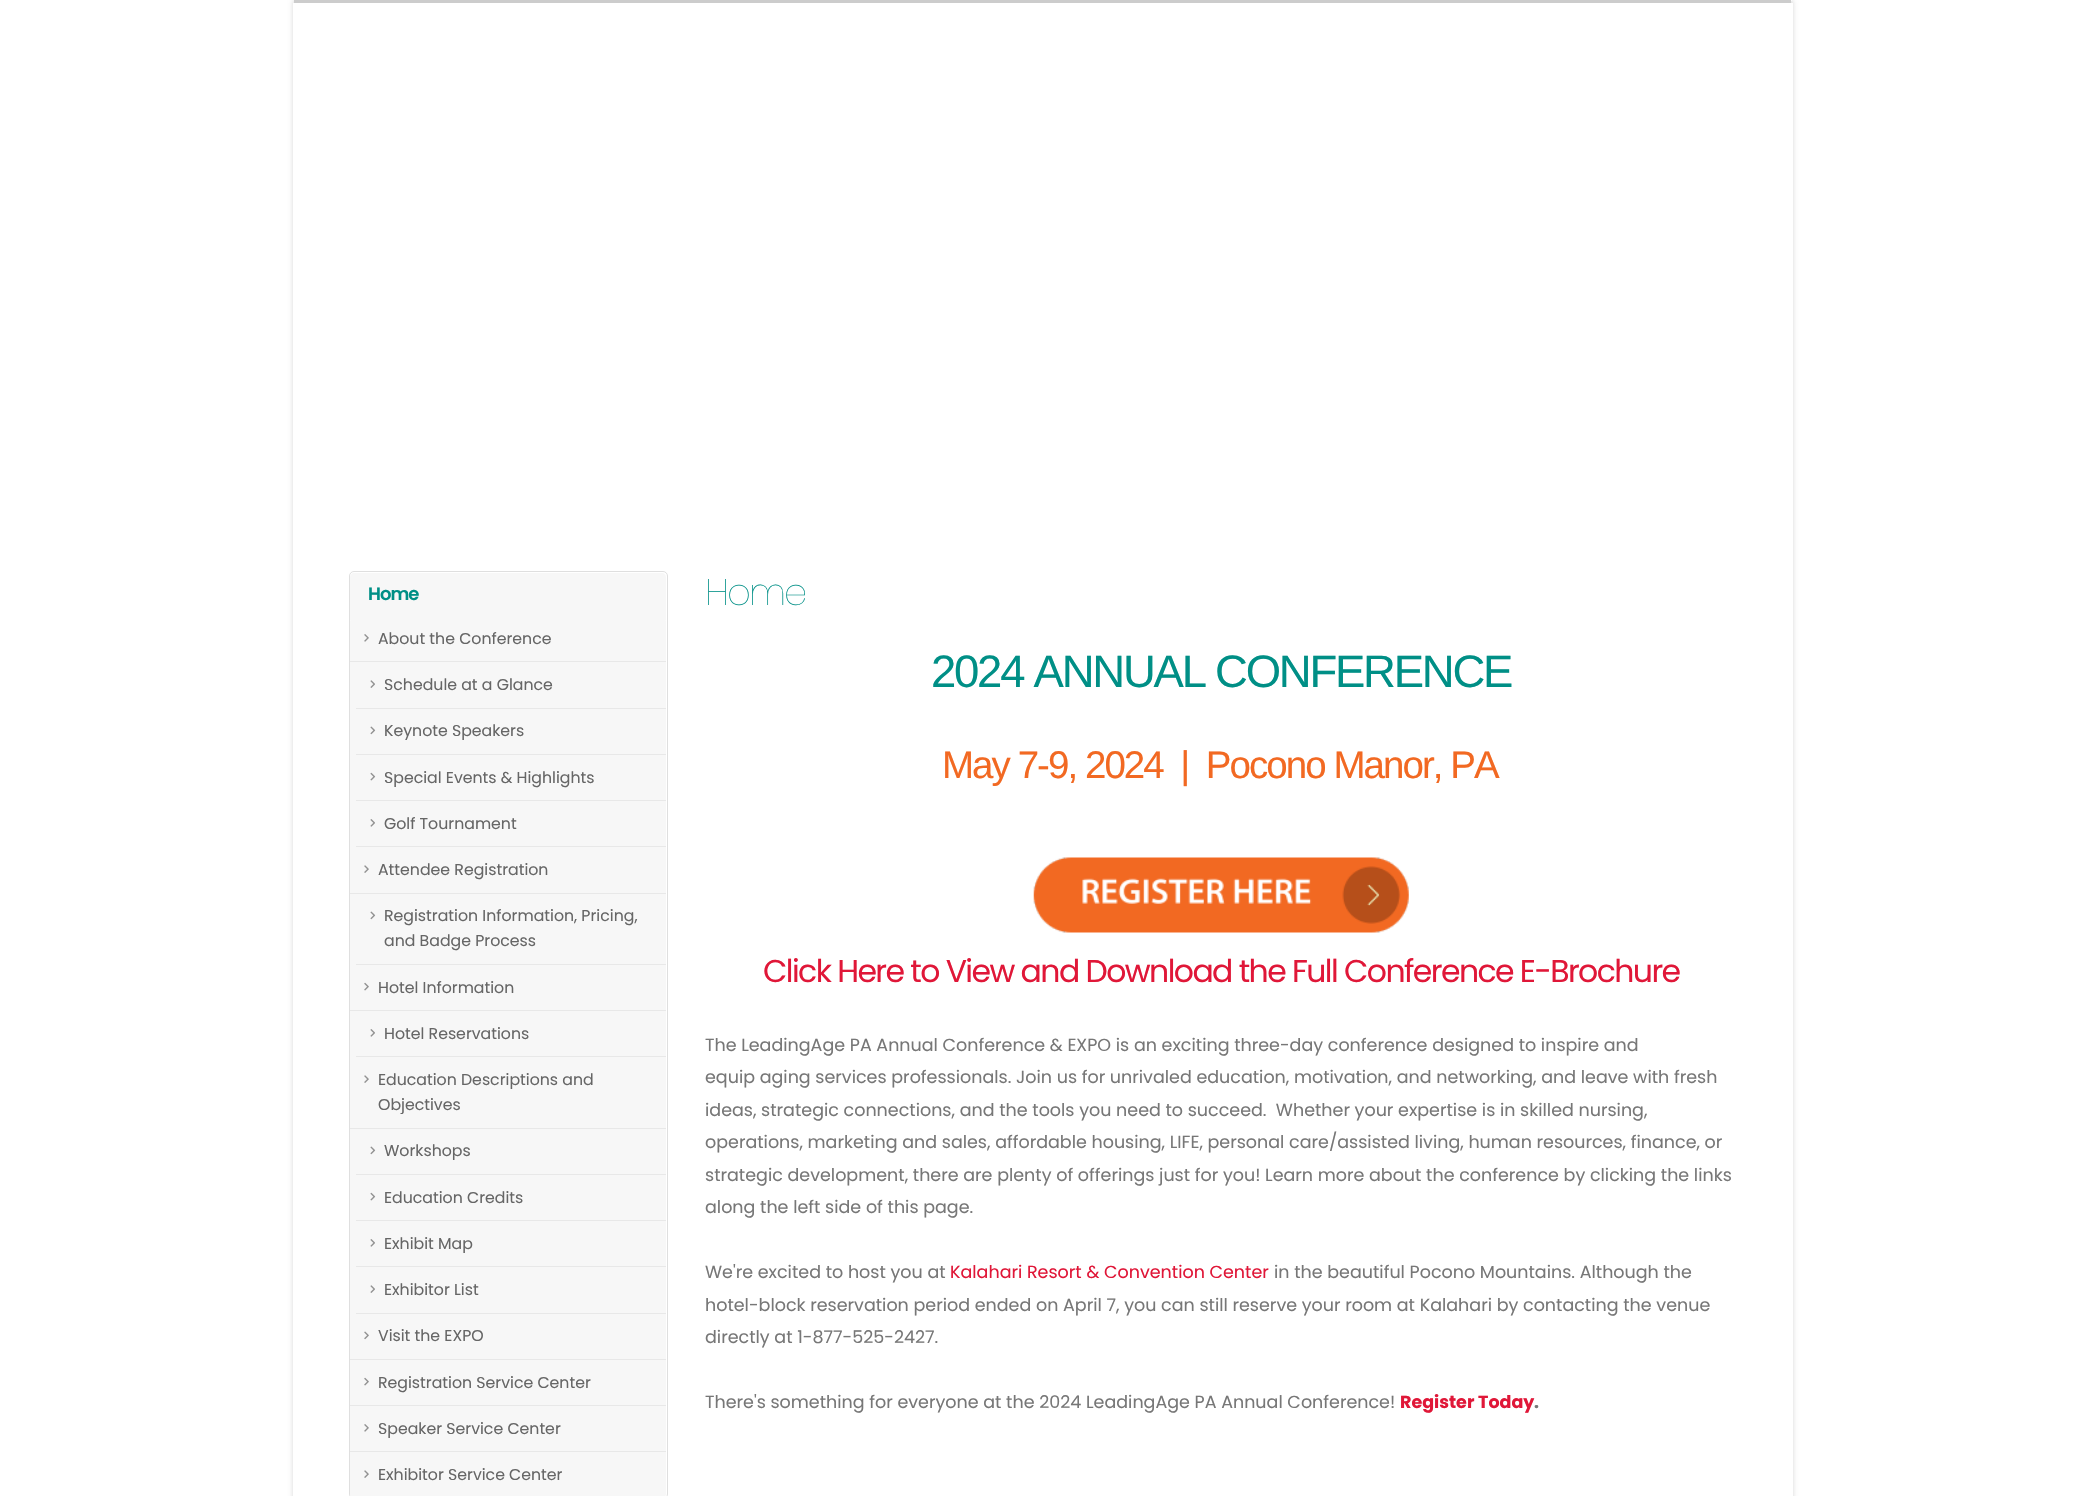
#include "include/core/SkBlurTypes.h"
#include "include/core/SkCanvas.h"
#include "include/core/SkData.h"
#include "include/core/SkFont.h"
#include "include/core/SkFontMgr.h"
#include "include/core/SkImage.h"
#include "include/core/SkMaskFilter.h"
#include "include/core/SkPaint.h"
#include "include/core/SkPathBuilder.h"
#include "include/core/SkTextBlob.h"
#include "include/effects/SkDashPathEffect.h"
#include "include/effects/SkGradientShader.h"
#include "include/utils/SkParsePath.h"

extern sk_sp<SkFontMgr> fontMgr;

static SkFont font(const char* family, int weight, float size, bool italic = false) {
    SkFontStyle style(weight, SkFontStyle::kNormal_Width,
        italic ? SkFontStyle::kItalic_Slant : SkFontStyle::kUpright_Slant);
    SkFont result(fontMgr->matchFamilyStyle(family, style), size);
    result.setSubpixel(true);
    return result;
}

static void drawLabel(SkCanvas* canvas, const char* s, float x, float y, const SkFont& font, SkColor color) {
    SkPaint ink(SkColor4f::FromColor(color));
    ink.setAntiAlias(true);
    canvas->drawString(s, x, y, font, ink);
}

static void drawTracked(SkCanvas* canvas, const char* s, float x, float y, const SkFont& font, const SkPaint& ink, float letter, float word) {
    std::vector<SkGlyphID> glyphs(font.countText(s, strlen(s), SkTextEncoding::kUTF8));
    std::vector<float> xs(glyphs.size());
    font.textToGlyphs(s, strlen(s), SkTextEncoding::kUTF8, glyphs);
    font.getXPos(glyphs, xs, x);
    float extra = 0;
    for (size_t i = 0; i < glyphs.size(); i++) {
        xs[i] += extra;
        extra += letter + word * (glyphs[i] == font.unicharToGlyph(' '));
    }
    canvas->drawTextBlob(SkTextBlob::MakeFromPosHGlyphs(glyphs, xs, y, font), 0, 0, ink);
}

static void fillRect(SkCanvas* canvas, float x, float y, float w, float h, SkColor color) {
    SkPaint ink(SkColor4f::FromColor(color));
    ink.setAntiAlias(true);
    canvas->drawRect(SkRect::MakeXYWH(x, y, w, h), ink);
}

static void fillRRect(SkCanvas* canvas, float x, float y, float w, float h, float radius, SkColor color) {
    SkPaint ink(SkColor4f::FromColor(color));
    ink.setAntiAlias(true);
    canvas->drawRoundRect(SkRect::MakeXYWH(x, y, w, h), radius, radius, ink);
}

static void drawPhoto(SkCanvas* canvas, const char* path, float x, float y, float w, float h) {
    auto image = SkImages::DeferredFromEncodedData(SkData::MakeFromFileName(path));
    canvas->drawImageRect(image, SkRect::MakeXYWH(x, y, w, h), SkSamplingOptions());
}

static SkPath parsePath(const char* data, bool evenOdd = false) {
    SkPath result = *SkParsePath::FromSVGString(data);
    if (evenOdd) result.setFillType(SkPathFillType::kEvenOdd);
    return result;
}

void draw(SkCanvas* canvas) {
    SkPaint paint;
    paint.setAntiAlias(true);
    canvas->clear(0xFFFFFFFF);
    paint.setColor(0x26000000);
    paint.setMaskFilter(SkMaskFilter::MakeBlur(kNormal_SkBlurStyle, 2.5f));
    canvas->drawRoundRect(SkRect::MakeXYWH(293, 0, 1500, 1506), 2.5f, 2.5f, paint);
    paint.setMaskFilter(nullptr);
    fillRect(canvas, 1791, 0, 1, 1, 0xFFFBFBFB);
    fillRect(canvas, 294, 0, 1497, 3, 0xFFCCCCCC);
    fillRect(canvas, 293, 3, 1500, 1493, 0xFFFFFFFF);
    paint.setStroke(true);
    paint.setStrokeWidth(1);
    paint.setColor(0xFFDFDFDF);
    canvas->drawRoundRect(SkRect::MakeXYWH(349.5f, 571.5f, 318, 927), 4.5f, 4.5f, paint);
    canvas->save();
    canvas->clipPath(parsePath("M354 573H662C664 573 666 575 666 577V1494C666 1496 664 1498 662 1498H354C352 1498 350 1496 350 1494V577C350 575 352 573 354 573Z"), true);
    fillRRect(canvas, 349, 571, 319, 47, 5, 0xFFF7F7F7);
    canvas->restore();
    SkFont font1 = font("Poppins", 600, 18);
    paint.setStroke(false);
    paint.setColor(0xFF008F86);
    drawTracked(canvas, "Home", 368, 600, font1, paint, -1, 0);
    fillRRect(canvas, 350, 616, 316, 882, 6, 0xFFF7F7F7);
    fillRect(canvas, 350, 616, 316, 4, 0xFFF7F7F7);
    fillRect(canvas, 350, 661, 316, 1, 0xFFE8E8E8);
    drawPhoto(canvas, "assets/img1.png", 364, 634, 5, 8);
    SkFont font2 = font("Poppins", 400, 15.75f);
    drawLabel(canvas, "About the Conference", 378, 644, font2, 0xFF666666);
    fillRect(canvas, 356, 708, 310, 1, 0xFFE8E8E8);
    drawPhoto(canvas, "assets/img2.png", 370, 680, 5, 8);
    drawLabel(canvas, "Schedule at a Glance", 384, 690, font2, 0xFF666666);
    fillRect(canvas, 356, 754, 310, 1, 0xFFE8E8E8);
    drawPhoto(canvas, "assets/img3.png", 370, 726, 6, 9);
    drawLabel(canvas, "Keynote Speakers", 384, 736, font2, 0xFF666666);
    fillRect(canvas, 356, 800, 310, 1, 0xFFE8E8E8);
    drawPhoto(canvas, "assets/img4.png", 370, 772, 6, 9);
    drawLabel(canvas, "Special Events & Highlights", 384, 783, font2, 0xFF666666);
    fillRect(canvas, 356, 846, 310, 1, 0xFFE8E8E8);
    drawPhoto(canvas, "assets/img5.png", 370, 819, 5, 8);
    drawLabel(canvas, "Golf Tournament", 384, 829, font2, 0xFF666666);
    fillRect(canvas, 350, 893, 316, 1, 0xFFE8E8E8);
    drawPhoto(canvas, "assets/img6.png", 364, 865, 5, 8);
    drawLabel(canvas, "Attendee Registration", 378, 875, font2, 0xFF666666);
    fillRect(canvas, 356, 964, 310, 1, 0xFFE8E8E8);
    drawPhoto(canvas, "assets/img3.png", 370, 911, 6, 9);
    drawLabel(canvas, "Registration Information, Pricing,", 384, 921, font2, 0xFF666666);
    drawLabel(canvas, "and Badge Process", 384, 946, font2, 0xFF666666);
    fillRect(canvas, 350, 1010, 316, 1, 0xFFE8E8E8);
    drawPhoto(canvas, "assets/img7.png", 364, 982, 5, 9);
    drawLabel(canvas, "Hotel Information", 378, 993, font2, 0xFF666666);
    fillRect(canvas, 356, 1056, 310, 1, 0xFFE8E8E8);
    drawPhoto(canvas, "assets/img5.png", 370, 1029, 5, 8);
    drawLabel(canvas, "Hotel Reservations", 384, 1039, font2, 0xFF666666);
    fillRect(canvas, 350, 1128, 316, 1, 0xFFE8E8E8);
    drawPhoto(canvas, "assets/img6.png", 364, 1075, 5, 8);
    drawLabel(canvas, "Education Descriptions and", 378, 1085, font2, 0xFF666666);
    drawLabel(canvas, "Objectives", 378, 1110, font2, 0xFF666666);
    fillRect(canvas, 356, 1174, 310, 1, 0xFFE8E8E8);
    drawPhoto(canvas, "assets/img3.png", 370, 1146, 6, 9);
    drawLabel(canvas, "Workshops", 384, 1156, font2, 0xFF666666);
    fillRect(canvas, 356, 1220, 310, 1, 0xFFE8E8E8);
    drawPhoto(canvas, "assets/img4.png", 370, 1192, 6, 9);
    drawLabel(canvas, "Education Credits", 384, 1203, font2, 0xFF666666);
    fillRect(canvas, 356, 1266, 310, 1, 0xFFE8E8E8);
    drawPhoto(canvas, "assets/img5.png", 370, 1239, 5, 8);
    drawLabel(canvas, "Exhibit Map", 384, 1249, font2, 0xFF666666);
    fillRect(canvas, 356, 1313, 310, 1, 0xFFE8E8E8);
    drawPhoto(canvas, "assets/img2.png", 370, 1285, 5, 8);
    drawLabel(canvas, "Exhibitor List", 384, 1295, font2, 0xFF666666);
    fillRect(canvas, 350, 1359, 316, 1, 0xFFE8E8E8);
    drawPhoto(canvas, "assets/img8.png", 364, 1331, 5, 9);
    drawLabel(canvas, "Visit the EXPO", 378, 1341, font2, 0xFF666666);
    fillRect(canvas, 350, 1405, 316, 1, 0xFFE8E8E8);
    drawPhoto(canvas, "assets/img7.png", 364, 1377, 5, 9);
    drawLabel(canvas, "Registration Service Center", 378, 1388, font2, 0xFF666666);
    fillRect(canvas, 350, 1451, 316, 1, 0xFFE8E8E8);
    drawPhoto(canvas, "assets/img1.png", 364, 1424, 5, 8);
    drawLabel(canvas, "Speaker Service Center", 378, 1434, font2, 0xFF666666);
    paint.setColor(0xFFF7F7F7);
    canvas->drawPath(parsePath("M350 1453H666V1494C666 1496 664 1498 662 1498H354C352 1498 350 1496 350 1494Z"), paint);
    drawPhoto(canvas, "assets/img6.png", 364, 1470, 5, 8);
    drawLabel(canvas, "Exhibitor Service Center", 378, 1480, font2, 0xFF666666);
    SkFont font3 = font("Poppins", 200, 37);
    paint.setColor(0xFF008F86);
    drawTracked(canvas, "Home", 705, 605, font3, paint, -2, 0);
    SkFont font4 = font("Liberation Sans", 400, 45.5f);
    drawTracked(canvas, "2024 ANNUAL CONFERENCE", 931, 687, font4, paint, -2.25f, 0);
    SkFont font5 = font("Liberation Sans", 400, 38.5f);
    paint.setColor(0xFFF26922);
    drawTracked(canvas, "May 7-9, 2024  |  Pocono Manor, PA", 942, 778, font5, paint, -1.95f, 0);
    drawPhoto(canvas, "assets/img9.png", 1033, 857, 376, 76);
    SkFont font6 = font("Poppins", 400, 31.5f);
    paint.setColor(0xFFE01738);
    drawTracked(canvas, "Click Here to View and Download the Full Conference E-Brochure", 763, 982, font6, paint, -1.57f, 0);
    SkFont font7 = font("Poppins", 400, 17.5f);
    drawLabel(canvas, "The LeadingAge PA Annual Conference & EXPO is an exciting three-day conference designed to inspire and", 705, 1051, font7, 0xFF777777);
    drawLabel(canvas, "equip aging services professionals. Join us for unrivaled education, motivation, and networking, and leave with fresh", 705, 1083, font7, 0xFF777777);
    drawLabel(canvas, "ideas, strategic connections, and the tools you need to succeed.  Whether your expertise is in skilled nursing,", 705, 1116, font7, 0xFF777777);
    drawLabel(canvas, "operations, marketing and sales, affordable housing, LIFE, personal care/assisted living, human resources, finance, or", 705, 1148, font7, 0xFF777777);
    drawLabel(canvas, "strategic development, there are plenty of offerings just for you! Learn more about the conference by clicking the links", 705, 1181, font7, 0xFF777777);
    drawLabel(canvas, "along the left side of this page.", 705, 1213, font7, 0xFF777777);
    drawLabel(canvas, "We're excited to host you at", 705, 1278, font7, 0xFF777777);
    drawLabel(canvas, "Kalahari Resort & Convention Center", 950, 1278, font7, 0xFFE01738);
    drawLabel(canvas, "in the beautiful Pocono Mountains. Although the", 1274, 1278, font7, 0xFF777777);
    drawLabel(canvas, "hotel-block reservation period ended on April 7, you can still reserve your room at Kalahari by contacting the venue", 705, 1311, font7, 0xFF777777);
    drawLabel(canvas, "directly at 1-877-525-2427.", 705, 1343, font7, 0xFF777777);
    drawLabel(canvas, "There's something for everyone at the 2024 LeadingAge PA Annual Conference!", 705, 1408, font7, 0xFF777777);
    SkFont font8 = font("Poppins", 700, 17.5f);
    drawLabel(canvas, "Register Today", 1400, 1408, font8, 0xFFE01738);
    drawLabel(canvas, ".", 1534, 1408, font8, 0xFF777777);
}
